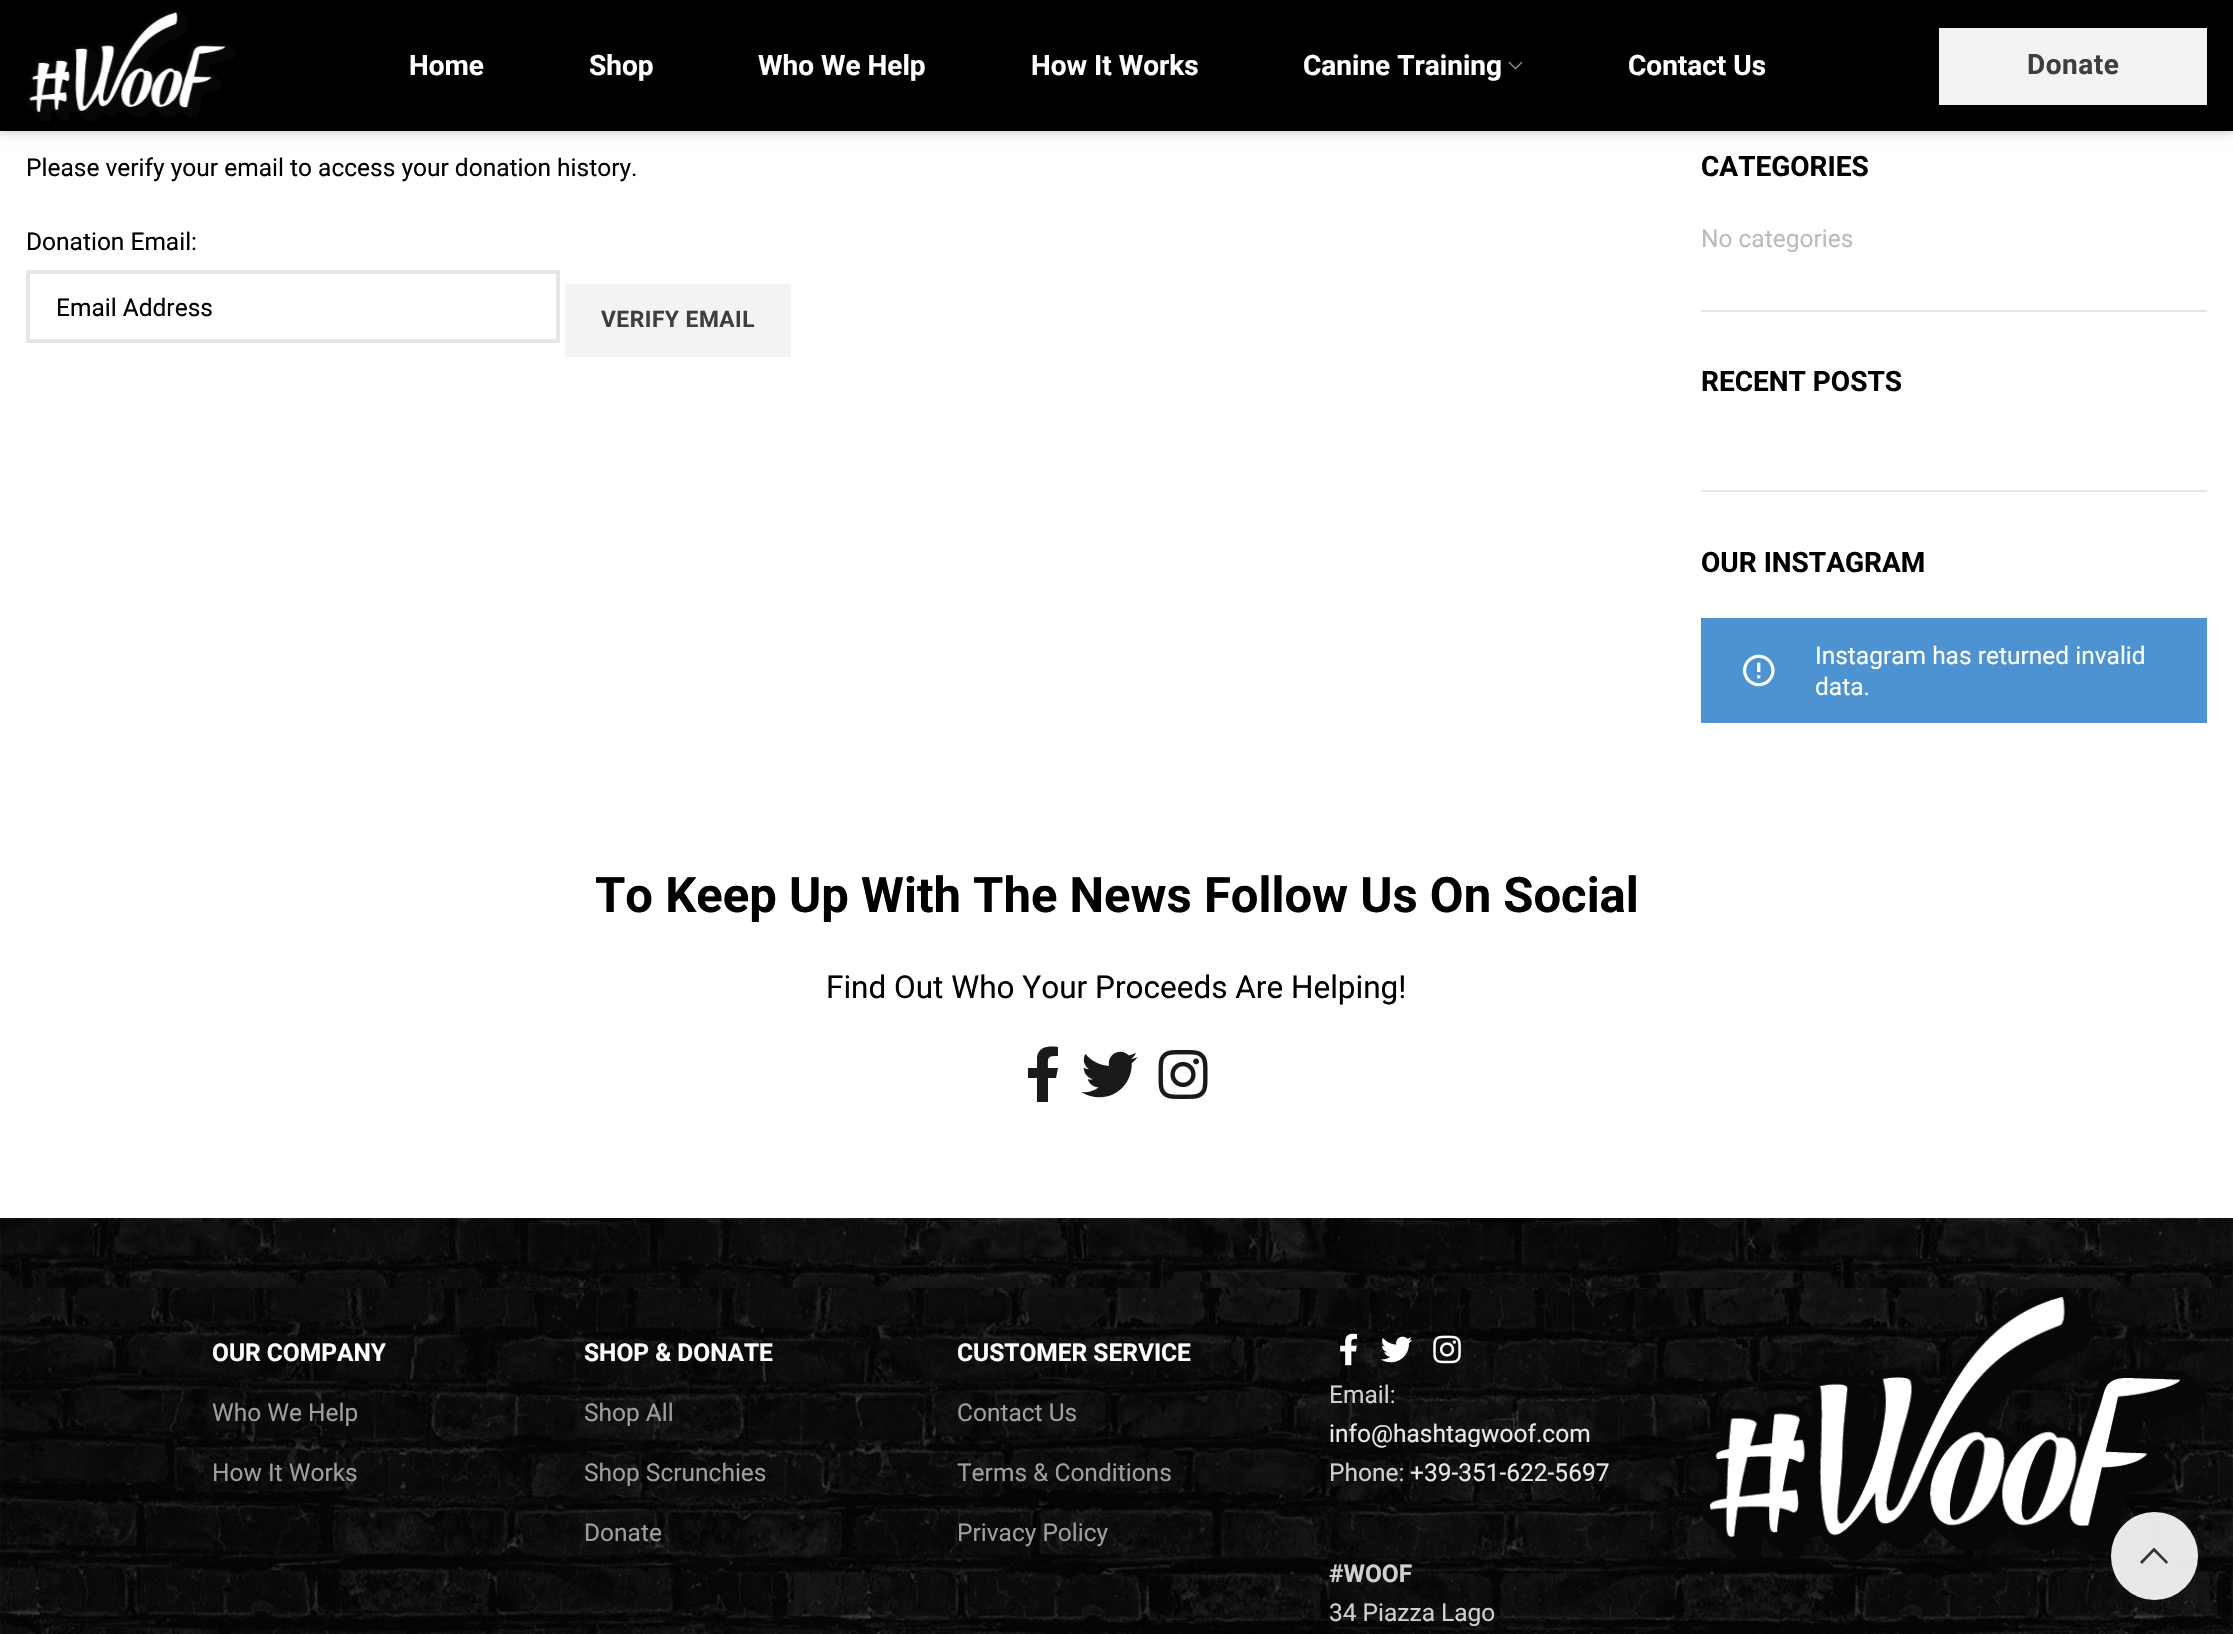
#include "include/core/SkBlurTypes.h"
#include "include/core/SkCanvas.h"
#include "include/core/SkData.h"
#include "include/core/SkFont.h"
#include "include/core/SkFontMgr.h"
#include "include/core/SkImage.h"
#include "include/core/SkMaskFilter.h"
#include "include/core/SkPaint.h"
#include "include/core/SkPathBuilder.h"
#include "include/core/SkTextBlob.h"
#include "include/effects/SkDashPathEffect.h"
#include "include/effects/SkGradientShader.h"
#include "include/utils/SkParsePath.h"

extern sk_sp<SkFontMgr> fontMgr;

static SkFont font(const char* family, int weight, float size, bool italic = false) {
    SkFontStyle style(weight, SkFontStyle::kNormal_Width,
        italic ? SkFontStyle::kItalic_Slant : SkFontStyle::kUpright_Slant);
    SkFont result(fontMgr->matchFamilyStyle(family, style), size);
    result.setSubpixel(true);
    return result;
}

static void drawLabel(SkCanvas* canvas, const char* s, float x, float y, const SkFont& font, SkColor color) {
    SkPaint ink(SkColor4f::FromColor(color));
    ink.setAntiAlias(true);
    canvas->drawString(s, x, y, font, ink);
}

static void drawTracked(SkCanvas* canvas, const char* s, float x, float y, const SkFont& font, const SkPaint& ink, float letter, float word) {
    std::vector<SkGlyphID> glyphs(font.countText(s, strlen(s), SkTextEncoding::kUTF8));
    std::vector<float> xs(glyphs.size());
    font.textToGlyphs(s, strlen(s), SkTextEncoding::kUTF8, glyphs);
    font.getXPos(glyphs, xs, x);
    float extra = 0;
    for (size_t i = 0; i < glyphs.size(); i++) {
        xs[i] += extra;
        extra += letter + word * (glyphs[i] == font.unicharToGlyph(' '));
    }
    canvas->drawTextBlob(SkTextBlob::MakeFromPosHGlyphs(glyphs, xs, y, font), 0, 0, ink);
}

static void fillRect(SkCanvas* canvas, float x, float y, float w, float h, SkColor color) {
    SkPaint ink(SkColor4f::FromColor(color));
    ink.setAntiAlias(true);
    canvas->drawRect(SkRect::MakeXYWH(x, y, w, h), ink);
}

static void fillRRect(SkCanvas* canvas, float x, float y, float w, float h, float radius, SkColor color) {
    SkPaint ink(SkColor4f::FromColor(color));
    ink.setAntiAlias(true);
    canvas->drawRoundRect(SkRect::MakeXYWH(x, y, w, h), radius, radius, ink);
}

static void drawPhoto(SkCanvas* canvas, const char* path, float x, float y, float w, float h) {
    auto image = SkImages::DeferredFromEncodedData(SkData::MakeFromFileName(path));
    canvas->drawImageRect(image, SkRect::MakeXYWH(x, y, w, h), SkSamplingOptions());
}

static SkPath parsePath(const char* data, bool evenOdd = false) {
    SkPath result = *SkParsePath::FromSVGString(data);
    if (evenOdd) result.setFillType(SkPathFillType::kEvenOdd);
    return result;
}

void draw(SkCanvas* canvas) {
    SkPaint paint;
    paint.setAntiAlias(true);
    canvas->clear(0xFFFFFFFF);
    paint.setColor(0x1A000000);
    paint.setMaskFilter(SkMaskFilter::MakeBlur(kNormal_SkBlurStyle, 2.5f));
    canvas->drawRect(SkRect::MakeXYWH(0, 2, 2233, 131), paint);
    paint.setMaskFilter(nullptr);
    paint.setMaskFilter(SkMaskFilter::MakeBlur(kNormal_SkBlurStyle, 7));
    canvas->drawRect(SkRect::MakeXYWH(0, 2, 2233, 131), paint);
    paint.setMaskFilter(nullptr);
    fillRect(canvas, 0, 0, 2233, 131, 0xFF000000);
    drawPhoto(canvas, "assets/img1.png", 26, 9, 210, 113);
    SkFont font1 = font("Roboto", 700, 28);
    drawLabel(canvas, "Home", 409, 75, font1, 0xFFFFFFFF);
    drawLabel(canvas, "Shop", 589, 75, font1, 0xFFFFFFFF);
    drawLabel(canvas, "Who We Help", 758, 75, font1, 0xFFFFFFFF);
    drawLabel(canvas, "How It Works", 1031, 75, font1, 0xFFFFFFFF);
    drawLabel(canvas, "Canine Training", 1303, 75, font1, 0xFFFFFFFF);
    drawPhoto(canvas, "assets/img2.png", 1508, 61, 15, 9);
    drawLabel(canvas, "Contact Us", 1628, 75, font1, 0xFFFFFFFF);
    fillRect(canvas, 1939, 28, 268, 77, 0xFFF3F3F3);
    paint.setColor(0xFF3E3E3E);
    drawTracked(canvas, "Donate", 2027, 74, font1, paint, 0.5f, 0);
    SkFont font2 = font("Roboto", 400, 24.5f);
    drawLabel(canvas, "Please verify your email to access your donation history.", 26, 176, font2, 0xFF000000);
    drawLabel(canvas, "Donation Email:", 26, 250, font2, 0xFF000000);
    paint.setStroke(true);
    paint.setStrokeWidth(4);
    paint.setColor(0xFFE6E6E6);
    canvas->drawRect(SkRect::MakeXYWH(28, 272, 530, 69), paint);
    drawLabel(canvas, "Email Address", 56, 316, font2, 0xFF000000);
    fillRect(canvas, 565, 284, 226, 73, 0xFFF3F3F3);
    SkFont font3 = font("Roboto", 700, 22.75f);
    paint.setStroke(false);
    paint.setColor(0xFF3E3E3E);
    drawTracked(canvas, "VERIFY EMAIL", 601, 327, font3, paint, 0.5f, 0);
    fillRect(canvas, 1701, 310, 506, 2, 0xFFE4E4E4);
    drawLabel(canvas, "CATEGORIES", 1701, 176, font1, 0xFF000000);
    drawLabel(canvas, "No categories", 1701, 247, font2, 0xFFBBBBBB);
    fillRect(canvas, 1701, 490, 506, 2, 0xFFE4E4E4);
    drawLabel(canvas, "RECENT POSTS", 1701, 391, font1, 0xFF000000);
    drawLabel(canvas, "OUR INSTAGRAM", 1701, 572, font1, 0xFF000000);
    fillRect(canvas, 1701, 618, 506, 105, 0xFF4D93D1);
    drawPhoto(canvas, "assets/img3.png", 1743, 654, 32, 33);
    drawLabel(canvas, "Instagram has returned invalid", 1815, 664, font2, 0xFFFFFFFF);
    drawLabel(canvas, "data.", 1815, 695, font2, 0xFFFFFFFF);
    SkFont font4 = font("Roboto", 700, 49);
    drawLabel(canvas, "To Keep Up With The News Follow Us On Social", 595, 912, font4, 0xFF000000);
    SkFont font5 = font("Roboto", 400, 31.5f);
    drawLabel(canvas, "Find Out Who Your Proceeds Are Helping!", 826, 998, font5, 0xFF000000);
    paint.setColor(0xFF1A1A1A);
    canvas->drawPath(parsePath("M1056 1078L1058 1068H1048C1048 1057 1047 1056 1058 1056V1047C1049 1046 1039 1046 1037 1057V1068H1028V1078H1037V1102H1048V1078Z"), paint);
    drawPhoto(canvas, "assets/img4.png", 1081, 1051, 57, 47);
    drawPhoto(canvas, "assets/img5.png", 1158, 1050, 50, 49);
    drawPhoto(canvas, "assets/img6.png", 0, 1218, 2233, 70);
    drawPhoto(canvas, "assets/img7.png", 0, 1288, 2233, 346);
    SkFont font6 = font("Roboto", 700, 24.5f);
    drawLabel(canvas, "OUR COMPANY", 212, 1361, font6, 0xFFFFFFFF);
    drawLabel(canvas, "Who We Help", 212, 1421, font2, 0xFF9D9E9E);
    drawLabel(canvas, "How It Works", 212, 1481, font2, 0xFF9D9E9E);
    drawLabel(canvas, "SHOP & DONATE", 584, 1361, font6, 0xFFFFFFFF);
    drawLabel(canvas, "Shop All", 584, 1421, font2, 0xFF9D9E9E);
    drawLabel(canvas, "Shop Scrunchies", 584, 1481, font2, 0xFF9D9E9E);
    drawLabel(canvas, "Donate", 584, 1541, font2, 0xFF9D9E9E);
    drawLabel(canvas, "CUSTOMER SERVICE", 957, 1361, font6, 0xFFFFFFFF);
    drawLabel(canvas, "Contact Us", 957, 1421, font2, 0xFF9D9E9E);
    drawLabel(canvas, "Terms & Conditions", 957, 1481, font2, 0xFF9D9E9E);
    drawLabel(canvas, "Privacy Policy", 957, 1541, font2, 0xFF9D9E9E);
    drawPhoto(canvas, "assets/img8.png", 1340, 1333, 18, 33);
    drawPhoto(canvas, "assets/img9.png", 1381, 1336, 32, 27);
    drawPhoto(canvas, "assets/img10.png", 1433, 1335, 28, 29);
    drawLabel(canvas, "Email:", 1329, 1403, font2, 0xFFCECFCE);
    drawLabel(canvas, "info@hashtagwoof.com", 1329, 1442, font2, 0xFFE7E7E7);
    drawLabel(canvas, "Phone:", 1329, 1481, font2, 0xFFCECFCE);
    drawLabel(canvas, "+39-351-622-5697", 1410, 1481, font2, 0xFFE7E7E7);
    drawLabel(canvas, "#WOOF", 1329, 1582, font6, 0xFFCECFCE);
    drawLabel(canvas, "34 Piazza Lago", 1329, 1621, font2, 0xFFCECFCE);
    drawPhoto(canvas, "assets/img11.png", 1701, 1288, 506, 273);
    fillRRect(canvas, 2111, 1512, 87, 88, 43.5f, 0xE6FFFFFF);
    paint.setColor(0xFF333333);
    canvas->drawPath(parsePath("M2154 1547.5L2168 1562L2166.5 1564L2154 1551.5L2142 1564L2140 1562Z"), paint);
}
